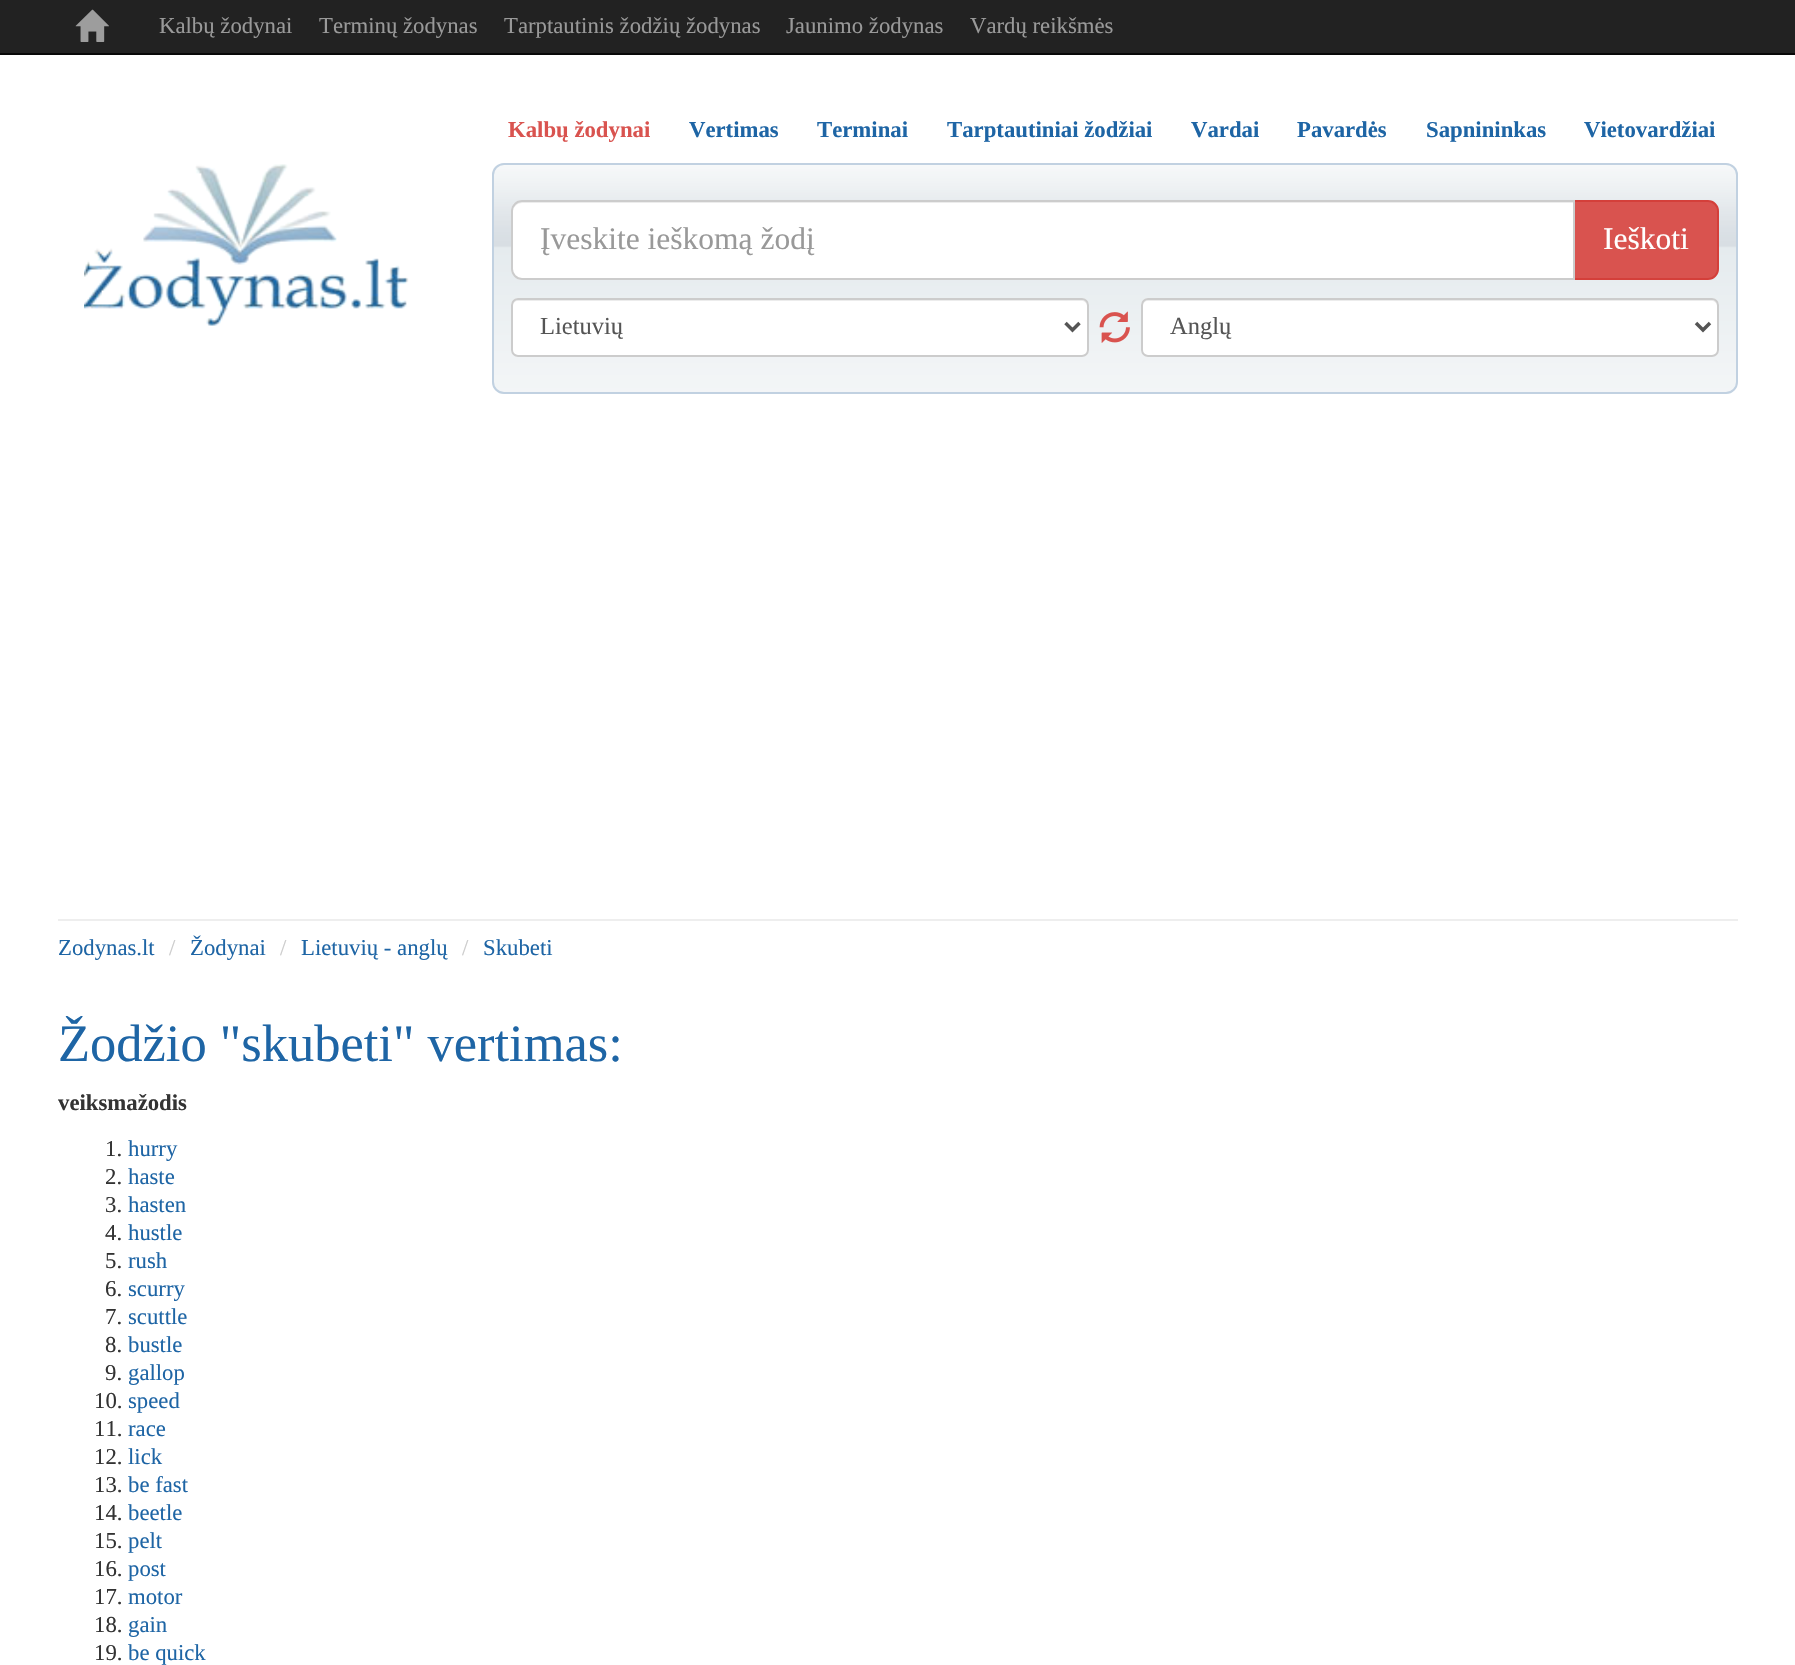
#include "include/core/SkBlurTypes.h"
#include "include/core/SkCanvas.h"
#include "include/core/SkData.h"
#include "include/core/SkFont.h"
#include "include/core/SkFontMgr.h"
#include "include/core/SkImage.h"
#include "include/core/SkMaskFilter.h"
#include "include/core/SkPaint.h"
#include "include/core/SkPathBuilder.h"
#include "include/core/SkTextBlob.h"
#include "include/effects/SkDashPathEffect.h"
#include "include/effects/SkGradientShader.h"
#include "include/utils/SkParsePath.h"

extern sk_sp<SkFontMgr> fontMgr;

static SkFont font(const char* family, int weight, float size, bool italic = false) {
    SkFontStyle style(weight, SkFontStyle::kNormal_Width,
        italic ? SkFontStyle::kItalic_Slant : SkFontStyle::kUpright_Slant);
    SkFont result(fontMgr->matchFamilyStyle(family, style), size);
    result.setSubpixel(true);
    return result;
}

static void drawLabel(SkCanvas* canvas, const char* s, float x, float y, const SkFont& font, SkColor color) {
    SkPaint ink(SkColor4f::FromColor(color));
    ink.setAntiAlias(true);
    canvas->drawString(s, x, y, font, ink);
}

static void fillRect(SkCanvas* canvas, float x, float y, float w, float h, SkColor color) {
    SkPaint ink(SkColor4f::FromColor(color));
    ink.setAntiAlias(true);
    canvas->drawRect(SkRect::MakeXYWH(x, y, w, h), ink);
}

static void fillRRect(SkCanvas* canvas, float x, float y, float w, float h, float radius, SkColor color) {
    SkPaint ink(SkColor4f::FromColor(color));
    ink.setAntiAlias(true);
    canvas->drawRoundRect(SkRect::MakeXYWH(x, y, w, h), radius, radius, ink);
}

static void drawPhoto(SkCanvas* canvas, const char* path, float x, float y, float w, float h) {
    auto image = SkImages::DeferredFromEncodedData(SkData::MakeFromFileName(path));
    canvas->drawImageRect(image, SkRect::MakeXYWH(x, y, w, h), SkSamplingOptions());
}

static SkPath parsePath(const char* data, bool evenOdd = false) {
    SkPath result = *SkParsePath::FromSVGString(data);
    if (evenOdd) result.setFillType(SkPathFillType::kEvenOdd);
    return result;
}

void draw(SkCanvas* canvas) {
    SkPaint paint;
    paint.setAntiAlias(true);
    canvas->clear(0xFFFFFFFF);
    fillRect(canvas, 0, 0, 1795, 53, 0xFF222222);
    fillRect(canvas, 0, 53, 1795, 2, 0xFF080808);
    drawPhoto(canvas, "assets/img1.png", 75, 9, 34, 33);
    SkFont font1 = font("Liberation Serif", 400, 22.75f);
    drawLabel(canvas, "Kalbų žodynai", 159, 33, font1, 0xFF999999);
    drawLabel(canvas, "Terminų žodynas", 319, 33, font1, 0xFF999999);
    drawLabel(canvas, "Tarptautinis žodžių žodynas", 504, 33, font1, 0xFF999999);
    drawLabel(canvas, "Jaunimo žodynas", 786, 33, font1, 0xFF999999);
    drawLabel(canvas, "Vardų reikšmės", 970, 33, font1, 0xFF999999);
    drawPhoto(canvas, "assets/img2.png", 84, 164, 325, 162);
    SkFont font2 = font("Liberation Serif", 700, 22.75f);
    drawLabel(canvas, "Kalbų žodynai", 508, 137, font2, 0xFFD9534F);
    drawLabel(canvas, "Vertimas", 689, 137, font2, 0xFF1E65A5);
    drawLabel(canvas, "Terminai", 817, 137, font2, 0xFF1E65A5);
    drawLabel(canvas, "Tarptautiniai žodžiai", 947, 137, font2, 0xFF1E65A5);
    drawLabel(canvas, "Vardai", 1191, 137, font2, 0xFF1E65A5);
    drawLabel(canvas, "Pavardės", 1297, 137, font2, 0xFF1E65A5);
    drawLabel(canvas, "Sapnininkas", 1426, 137, font2, 0xFF1E65A5);
    drawLabel(canvas, "Vietovardžiai", 1584, 137, font2, 0xFF1E65A5);
    drawPhoto(canvas, "assets/img3.png", 492, 164, 1246, 230);
    paint.setStroke(true);
    paint.setStrokeWidth(2);
    paint.setColor(0xFFC1D1E1);
    canvas->drawRoundRect(SkRect::MakeXYWH(493, 164, 1244, 229), 11, 11, paint);
    paint.setStroke(false);
    paint.setColor(0xFFD9534F);
    canvas->drawPath(parsePath("M1574 201H1708C1713.5 201 1718 205.5 1718 211V269C1718 274.5 1713.5 279 1708 279H1574Z"), paint);
    paint.setStroke(true);
    paint.setColor(0xFFD43F3A);
    canvas->drawPath(parsePath("M1574 201H1708C1713.5 201 1718 205.5 1718 211V269C1718 274.5 1713.5 279 1708 279H1574Z"), paint);
    paint.setStroke(false);
    paint.setColor(0xFFFFFFFF);
    canvas->drawPath(parsePath("M522 200H1575V280H522C516 280 511 275 511 269V211C511 205 516 200 522 200Z"), paint);
    paint.setColor(0xFFECECEC);
    canvas->drawPath(parsePath("M522 203H1573V201H522C516 201 513 206 513 212C513 207 517 203 522 203Z"), paint);
    paint.setStroke(true);
    paint.setColor(0xFFCCCCCC);
    canvas->drawPath(parsePath("M522 201H1574V279H522C516.5 279 512 274.5 512 269V211C512 205.5 516.5 201 522 201Z"), paint);
    SkFont font3 = font("Liberation Serif", 400, 31.5f);
    drawLabel(canvas, "Įveskite ieškomą žodį", 540, 249, font3, 0xFF999999);
    drawLabel(canvas, "Ieškoti", 1603, 249, font3, 0xFFFFFFFF);
    fillRRect(canvas, 511, 298, 578, 59, 7, 0xFFFFFFFF);
    paint.setStroke(false);
    paint.setColor(0xFFECECEC);
    canvas->drawPath(parsePath("M518 301H1082C1084 301 1087 303 1087 306V304C1087 301 1085 299 1082 299H518C515 299 513 301 513 304V306C513 303 515 301 518 301Z"), paint);
    paint.setStroke(true);
    paint.setColor(0xFFCCCCCC);
    canvas->drawRoundRect(SkRect::MakeXYWH(512, 299, 576, 57), 6, 6, paint);
    paint.setStrokeWidth(3.5f);
    paint.setColor(0xFF555555);
    canvas->drawPath(parsePath("M1065.5 323L1072.5 330L1079.5 323"), paint);
    SkFont font4 = font("Liberation Serif", 400, 24.5f);
    drawLabel(canvas, "Lietuvių", 540, 334, font4, 0xFF555555);
    drawPhoto(canvas, "assets/img4.png", 1099, 311, 31, 32);
    fillRRect(canvas, 1141, 298, 578, 59, 7, 0xFFFFFFFF);
    paint.setStroke(false);
    paint.setColor(0xFFECECEC);
    canvas->drawPath(parsePath("M1148 301H1712C1714 301 1717 303 1717 306V304C1717 301 1715 299 1712 299H1148C1145 299 1143 301 1143 304V306C1143 303 1145 301 1148 301Z"), paint);
    paint.setStroke(true);
    paint.setStrokeWidth(2);
    paint.setColor(0xFFCCCCCC);
    canvas->drawRoundRect(SkRect::MakeXYWH(1142, 299, 576, 57), 6, 6, paint);
    paint.setStrokeWidth(3.5f);
    paint.setColor(0xFF555555);
    canvas->drawPath(parsePath("M1696 323L1703 330L1710 323"), paint);
    drawLabel(canvas, "Anglų", 1170, 334, font4, 0xFF555555);
    fillRect(canvas, 58, 919, 1680, 2, 0xFFEEEEEE);
    drawLabel(canvas, "Zodynas.lt", 58, 955, font1, 0xFF1E65A5);
    drawLabel(canvas, "/", 169, 955, font1, 0xFFCCCCCC);
    drawLabel(canvas, "Žodynai", 190, 955, font1, 0xFF1E65A5);
    drawLabel(canvas, "/", 280, 955, font1, 0xFFCCCCCC);
    drawLabel(canvas, "Lietuvių - anglų", 301, 955, font1, 0xFF1E65A5);
    drawLabel(canvas, "/", 462, 955, font1, 0xFFCCCCCC);
    drawLabel(canvas, "Skubeti", 483, 955, font1, 0xFF1E65A5);
    SkFont font5 = font("Liberation Serif", 400, 52.5f);
    drawLabel(canvas, "Žodžio \"skubeti\" vertimas:", 58, 1061, font5, 0xFF1E65A5);
    drawLabel(canvas, "veiksmažodis", 58, 1110, font2, 0xFF333333);
    drawLabel(canvas, "1.", 105, 1156, font1, 0xFF333333);
    drawLabel(canvas, "hurry", 128, 1156, font1, 0xFF1E65A5);
    drawLabel(canvas, "2.", 105, 1184, font1, 0xFF333333);
    drawLabel(canvas, "haste", 128, 1184, font1, 0xFF1E65A5);
    drawLabel(canvas, "3.", 105, 1212, font1, 0xFF333333);
    drawLabel(canvas, "hasten", 128, 1212, font1, 0xFF1E65A5);
    drawLabel(canvas, "4.", 105, 1240, font1, 0xFF333333);
    drawLabel(canvas, "hustle", 128, 1240, font1, 0xFF1E65A5);
    drawLabel(canvas, "5.", 105, 1268, font1, 0xFF333333);
    drawLabel(canvas, "rush", 128, 1268, font1, 0xFF1E65A5);
    drawLabel(canvas, "6.", 105, 1296, font1, 0xFF333333);
    drawLabel(canvas, "scurry", 128, 1296, font1, 0xFF1E65A5);
    drawLabel(canvas, "7.", 105, 1324, font1, 0xFF333333);
    drawLabel(canvas, "scuttle", 128, 1324, font1, 0xFF1E65A5);
    drawLabel(canvas, "8.", 105, 1352, font1, 0xFF333333);
    drawLabel(canvas, "bustle", 128, 1352, font1, 0xFF1E65A5);
    drawLabel(canvas, "9.", 105, 1380, font1, 0xFF333333);
    drawLabel(canvas, "gallop", 128, 1380, font1, 0xFF1E65A5);
    drawLabel(canvas, "10.", 94, 1408, font1, 0xFF333333);
    drawLabel(canvas, "speed", 128, 1408, font1, 0xFF1E65A5);
    drawLabel(canvas, "11.", 94, 1436, font1, 0xFF333333);
    drawLabel(canvas, "race", 128, 1436, font1, 0xFF1E65A5);
    drawLabel(canvas, "12.", 94, 1464, font1, 0xFF333333);
    drawLabel(canvas, "lick", 128, 1464, font1, 0xFF1E65A5);
    drawLabel(canvas, "13.", 94, 1492, font1, 0xFF333333);
    drawLabel(canvas, "be fast", 128, 1492, font1, 0xFF1E65A5);
    drawLabel(canvas, "14.", 94, 1520, font1, 0xFF333333);
    drawLabel(canvas, "beetle", 128, 1520, font1, 0xFF1E65A5);
    drawLabel(canvas, "15.", 94, 1548, font1, 0xFF333333);
    drawLabel(canvas, "pelt", 128, 1548, font1, 0xFF1E65A5);
    drawLabel(canvas, "16.", 94, 1576, font1, 0xFF333333);
    drawLabel(canvas, "post", 128, 1576, font1, 0xFF1E65A5);
    drawLabel(canvas, "17.", 94, 1604, font1, 0xFF333333);
    drawLabel(canvas, "motor", 128, 1604, font1, 0xFF1E65A5);
    drawLabel(canvas, "18.", 94, 1632, font1, 0xFF333333);
    drawLabel(canvas, "gain", 128, 1632, font1, 0xFF1E65A5);
    drawLabel(canvas, "19.", 94, 1660, font1, 0xFF333333);
    drawLabel(canvas, "be quick", 128, 1660, font1, 0xFF1E65A5);
}
